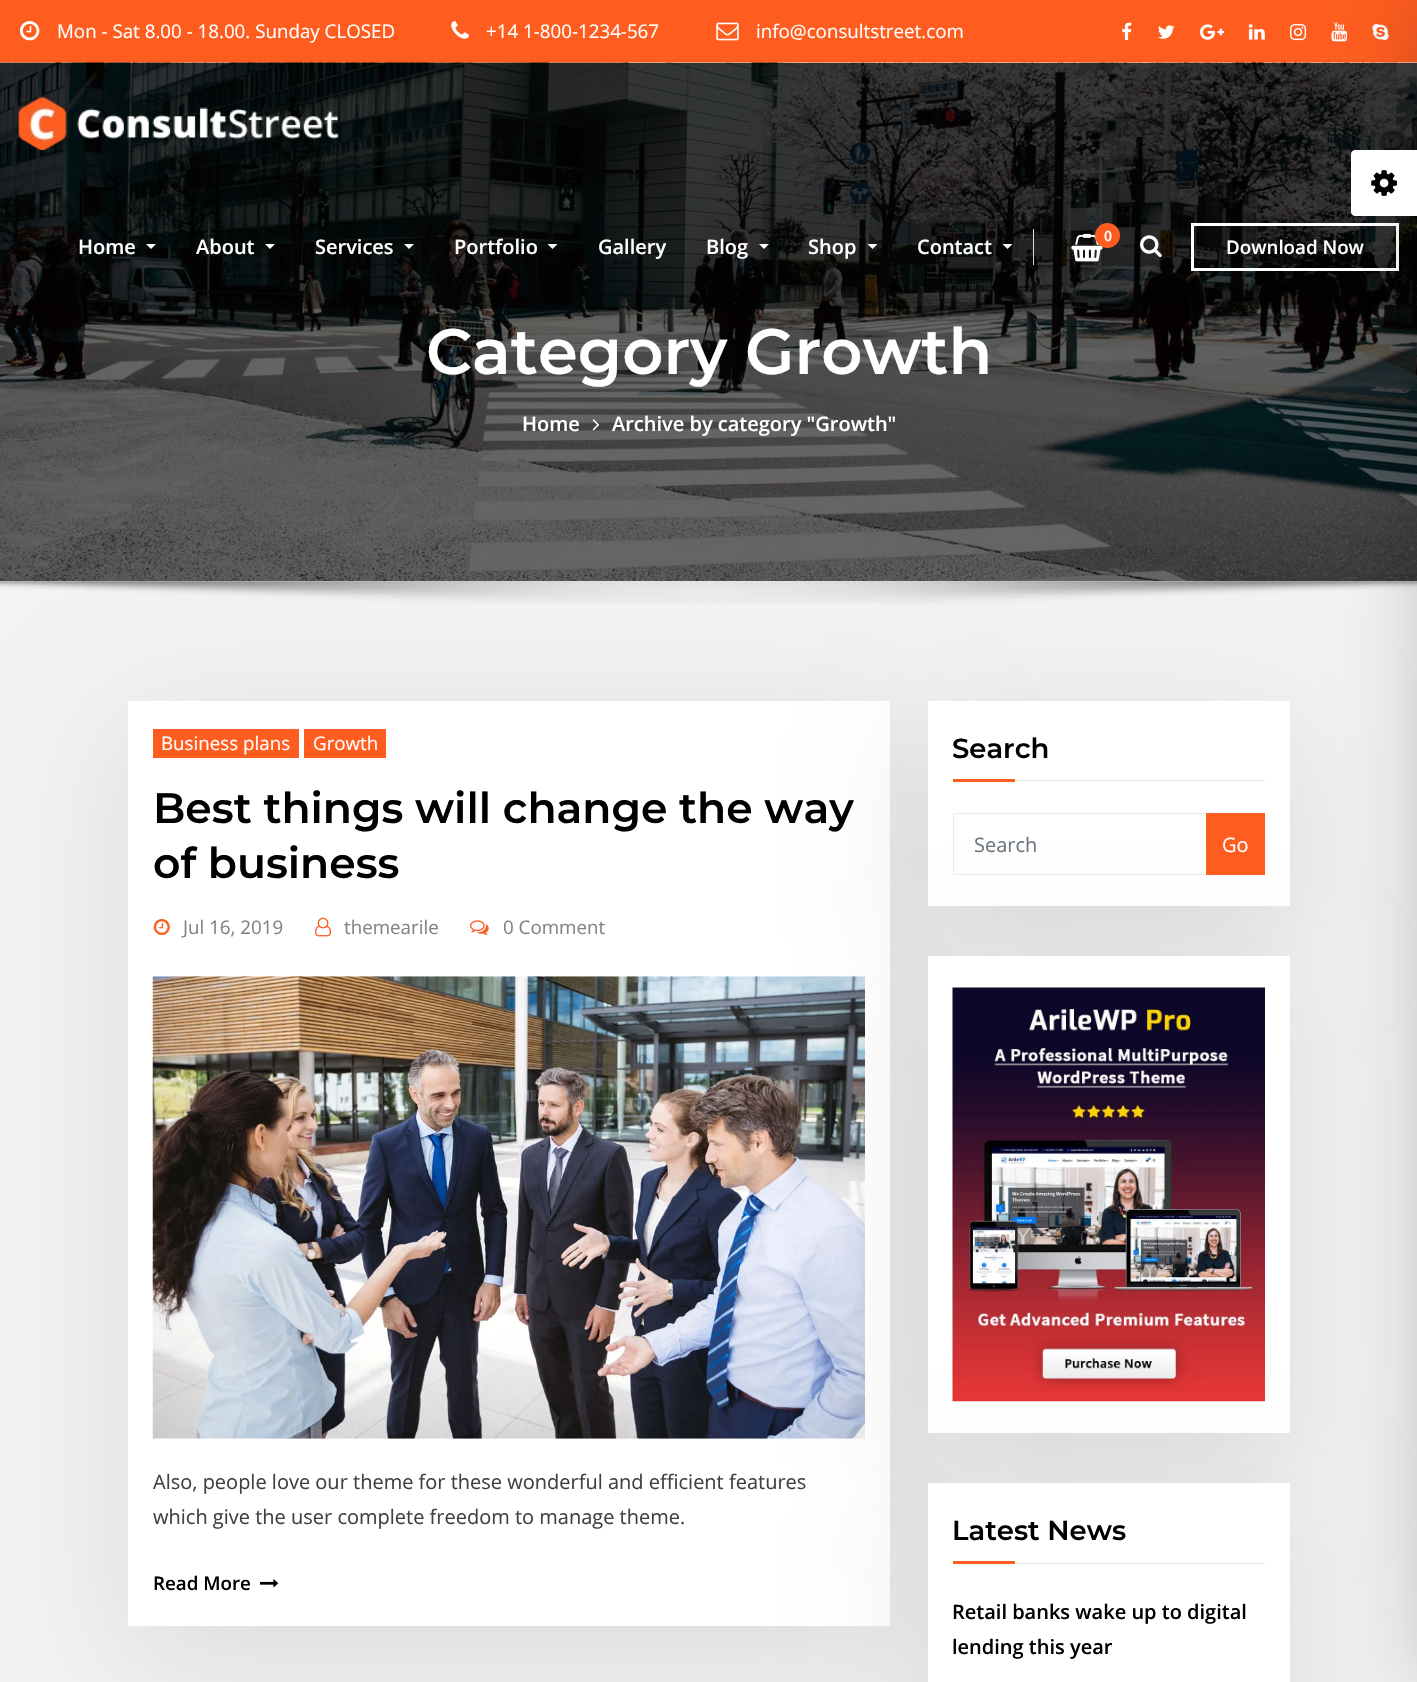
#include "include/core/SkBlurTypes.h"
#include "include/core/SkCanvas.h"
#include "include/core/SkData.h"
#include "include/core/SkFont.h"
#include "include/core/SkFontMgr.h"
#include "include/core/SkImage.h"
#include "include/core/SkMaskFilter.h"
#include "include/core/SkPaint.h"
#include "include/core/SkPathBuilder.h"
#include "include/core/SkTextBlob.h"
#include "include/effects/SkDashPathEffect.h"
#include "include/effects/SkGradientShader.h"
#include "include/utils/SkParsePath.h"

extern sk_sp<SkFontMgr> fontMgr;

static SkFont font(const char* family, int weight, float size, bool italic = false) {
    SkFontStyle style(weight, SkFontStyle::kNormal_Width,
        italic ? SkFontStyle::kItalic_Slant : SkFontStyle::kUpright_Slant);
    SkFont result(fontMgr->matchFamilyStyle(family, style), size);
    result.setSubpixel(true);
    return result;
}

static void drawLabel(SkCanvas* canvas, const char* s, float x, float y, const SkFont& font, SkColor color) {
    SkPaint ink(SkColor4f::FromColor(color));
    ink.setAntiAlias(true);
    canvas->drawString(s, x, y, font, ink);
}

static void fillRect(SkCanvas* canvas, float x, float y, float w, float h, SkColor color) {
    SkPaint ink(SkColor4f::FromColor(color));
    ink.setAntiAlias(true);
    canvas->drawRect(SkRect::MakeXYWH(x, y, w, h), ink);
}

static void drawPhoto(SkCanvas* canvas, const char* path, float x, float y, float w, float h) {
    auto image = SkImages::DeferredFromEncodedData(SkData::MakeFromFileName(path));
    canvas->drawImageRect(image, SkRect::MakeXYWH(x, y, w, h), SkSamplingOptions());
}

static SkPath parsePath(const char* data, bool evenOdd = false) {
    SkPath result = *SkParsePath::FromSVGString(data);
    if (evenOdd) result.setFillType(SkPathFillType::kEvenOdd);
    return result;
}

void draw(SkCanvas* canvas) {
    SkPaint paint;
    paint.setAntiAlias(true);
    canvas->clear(0xFFFF5D20);
    drawPhoto(canvas, "assets/img1.png", 20, 21, 20, 20);
    SkFont font1 = font("Open Sans", 400, 18.75f);
    drawLabel(canvas, "Mon - Sat 8.00 - 18.00. Sunday CLOSED", 57, 38, font1, 0xFFFFFFFF);
    drawPhoto(canvas, "assets/img2.png", 451, 21, 18, 18);
    drawLabel(canvas, "+14 1-800-1234-567", 486, 38, font1, 0xFFFFFFFF);
    drawPhoto(canvas, "assets/img3.png", 716, 22, 23, 19);
    drawLabel(canvas, "info@consultstreet.com", 756, 38, font1, 0xFFFFFFFF);
    drawPhoto(canvas, "assets/img4.png", 1122, 22, 10, 19);
    drawPhoto(canvas, "assets/img5.png", 1158, 25, 17, 14);
    drawPhoto(canvas, "assets/img6.png", 1200, 24, 25, 16);
    drawPhoto(canvas, "assets/img7.png", 1248, 24, 17, 16);
    drawPhoto(canvas, "assets/img8.png", 1290, 24, 17, 17);
    drawPhoto(canvas, "assets/img9.png", 1331, 22, 17, 20);
    drawPhoto(canvas, "assets/img10.png", 1372, 24, 17, 17);
    drawPhoto(canvas, "assets/img15.png", 0, 62, 1417, 519);
    fillRect(canvas, 0, 63, 1417, 246, 0x66000000);
    paint.setStroke(true);
    paint.setStrokeWidth(3);
    paint.setColor(0xFFFFFFFF);
    canvas->drawRect(SkRect::MakeXYWH(1192.5f, 224.5f, 205, 45), paint);
    fillRect(canvas, 0, 581, 1417, 1101, 0xFFF3F3F3);
    paint.setStroke(false);
    paint.setColor(0x1A000000);
    paint.setMaskFilter(SkMaskFilter::MakeBlur(kNormal_SkBlurStyle, 61));
    canvas->drawRect(SkRect::MakeXYWH(128, 733, 762, 925), paint);
    paint.setMaskFilter(nullptr);
    fillRect(canvas, 128, 701, 762, 925, 0xFFFFFFFF);
    drawPhoto(canvas, "assets/img21.png", 152, 976, 713, 463);
    paint.setMaskFilter(SkMaskFilter::MakeBlur(kNormal_SkBlurStyle, 61));
    canvas->drawRect(SkRect::MakeXYWH(928, 733, 362, 205), paint);
    paint.setMaskFilter(nullptr);
    drawPhoto(canvas, "assets/img17.png", 0, 581, 1417, 23);
    paint.setColor(0x33000000);
    paint.setMaskFilter(SkMaskFilter::MakeBlur(kNormal_SkBlurStyle, 40.5f));
    canvas->drawRoundRect(SkRect::MakeXYWH(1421, 0, 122, 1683), 4, 4, paint);
    paint.setMaskFilter(nullptr);
    paint.setColor(0xFFFFFFFF);
    canvas->drawPath(parsePath("M1355 150H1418V216H1355C1353 216 1351 214 1351 212V154C1351 152 1353 150 1355 150Z"), paint);
    drawPhoto(canvas, "assets/img11.png", 1371, 170, 26, 26);
    drawPhoto(canvas, "assets/img12.png", 18, 97, 321, 53);
    SkFont font2 = font("Open Sans", 600, 20);
    drawLabel(canvas, "Home", 78, 254, font2, 0xFFFFFFFF);
    canvas->drawPath(parsePath("M146 244H156L151 249Z"), paint);
    drawLabel(canvas, "About", 196, 254, font2, 0xFFFFFFFF);
    canvas->drawPath(parsePath("M265 244H275L270 249Z"), paint);
    drawLabel(canvas, "Services", 315, 254, font2, 0xFFFFFFFF);
    canvas->drawPath(parsePath("M404 244H414L409 249Z"), paint);
    drawLabel(canvas, "Portfolio", 454, 254, font2, 0xFFFFFFFF);
    canvas->drawPath(parsePath("M547.5 244H557.5L552.5 249Z"), paint);
    drawLabel(canvas, "Gallery", 598, 254, font2, 0xFFFFFFFF);
    drawLabel(canvas, "Blog", 706, 254, font2, 0xFFFFFFFF);
    canvas->drawPath(parsePath("M759 244H769L764 249Z"), paint);
    drawLabel(canvas, "Shop", 808, 254, font2, 0xFFFFFFFF);
    canvas->drawPath(parsePath("M867.5 244H877.5L872.5 249Z"), paint);
    drawLabel(canvas, "Contact", 917, 254, font2, 0xFFFFFFFF);
    canvas->drawPath(parsePath("M1002.5 244H1012.5L1007.5 249Z"), paint);
    fillRect(canvas, 1033, 229, 1, 36, 0xFFCFDDEA);
    drawPhoto(canvas, "assets/img13.png", 1071, 233, 32, 29);
    paint.setColor(0xFFFF5D20);
    canvas->drawCircle(1107.5f, 235.5f, 12.5f, paint);
    SkFont font3 = font("Open Sans", 600, 14);
    drawLabel(canvas, "0", 1104, 241, font3, 0xFFFFFFFF);
    drawPhoto(canvas, "assets/img14.png", 1140, 235, 22, 23);
    SkFont font4 = font("Open Sans", 600, 18.75f);
    drawLabel(canvas, "Download Now", 1226, 254, font4, 0xFFFFFFFF);
    SkFont font5 = font("Montserrat", 600, 64);
    drawLabel(canvas, "Category Growth", 426, 374, font5, 0xFFFFFFFF);
    drawLabel(canvas, "Home", 522, 431, font2, 0xFFFFFFFF);
    drawPhoto(canvas, "assets/img16.png", 592, 419, 8, 12);
    drawLabel(canvas, "Archive by category \"Growth\"", 612, 431, font2, 0xFFFFFFFF);
    fillRect(canvas, 153, 729, 146, 29, 0xFFFF5D20);
    drawLabel(canvas, "Business plans", 161, 750, font1, 0xFFFFFFFF);
    fillRect(canvas, 304, 729, 82, 29, 0xFFFF5D20);
    drawLabel(canvas, "Growth", 313, 750, font1, 0xFFFFFFFF);
    SkFont font6 = font("Montserrat", 600, 42.5f);
    drawLabel(canvas, "Best things will change the way", 153, 823, font6, 0xFF000000);
    drawLabel(canvas, "of business", 153, 878, font6, 0xFF000000);
    drawPhoto(canvas, "assets/img18.png", 153, 919, 17, 17);
    drawLabel(canvas, "Jul 16, 2019", 183, 934, font1, 0xFF838383);
    drawPhoto(canvas, "assets/img19.png", 315, 917, 17, 20);
    drawLabel(canvas, "themearile", 344, 934, font1, 0xFF838383);
    drawPhoto(canvas, "assets/img20.png", 470, 920, 19, 15);
    drawLabel(canvas, "0 Comment", 503, 934, font1, 0xFF838383);
    SkFont font7 = font("Open Sans", 400, 20);
    drawLabel(canvas, "Also, people love our theme for these wonderful and efficient features", 153, 1489, font7, 0xFF404040);
    drawLabel(canvas, "which give the user complete freedom to manage theme.", 153, 1524, font7, 0xFF404040);
    drawLabel(canvas, "Read More", 153, 1590, font4, 0xFF000000);
    drawPhoto(canvas, "assets/img22.png", 260, 1579, 18, 9);
    fillRect(canvas, 928, 701, 362, 205, 0xFFFFFFFF);
    fillRect(canvas, 1015, 780, 250, 1, 0xFFE9E9E9);
    SkFont font8 = font("Montserrat", 600, 27.5f);
    drawLabel(canvas, "Search", 952, 758, font8, 0xFF000000);
    fillRect(canvas, 953, 779, 62, 3, 0xFFFF5D20);
    paint.setColor(0x1A000000);
    paint.setMaskFilter(SkMaskFilter::MakeBlur(kNormal_SkBlurStyle, 61));
    canvas->drawRect(SkRect::MakeXYWH(928, 988, 362, 476), paint);
    paint.setMaskFilter(nullptr);
    paint.setStroke(true);
    paint.setStrokeWidth(1);
    paint.setColor(0xFFE9E9E9);
    canvas->drawRect(SkRect::MakeXYWH(953.5f, 813.5f, 254, 61), paint);
    drawLabel(canvas, "Search", 974, 852, font7, 0xFF6C757D);
    fillRect(canvas, 1206, 813, 59, 62, 0xFFFF5D20);
    drawLabel(canvas, "Go", 1222, 852, font7, 0xFFFFFFFF);
    fillRect(canvas, 928, 956, 362, 477, 0xFFFFFFFF);
    paint.setStroke(false);
    paint.setColor(0x1A000000);
    paint.setMaskFilter(SkMaskFilter::MakeBlur(kNormal_SkBlurStyle, 61));
    canvas->drawRect(SkRect::MakeXYWH(928, 1514, 362, 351), paint);
    paint.setMaskFilter(nullptr);
    drawPhoto(canvas, "assets/img23.png", 952, 987, 313, 415);
    fillRect(canvas, 928, 1483, 362, 199, 0xFFFFFFFF);
    fillRect(canvas, 1015, 1563, 250, 1, 0xFFE9E9E9);
    drawLabel(canvas, "Latest News", 952, 1540, font8, 0xFF000000);
    fillRect(canvas, 953, 1561, 62, 3, 0xFFFF5D20);
    drawLabel(canvas, "Retail banks wake up to digital", 952, 1619, font2, 0xFF000000);
    drawLabel(canvas, "lending this year", 952, 1654, font2, 0xFF000000);
}
